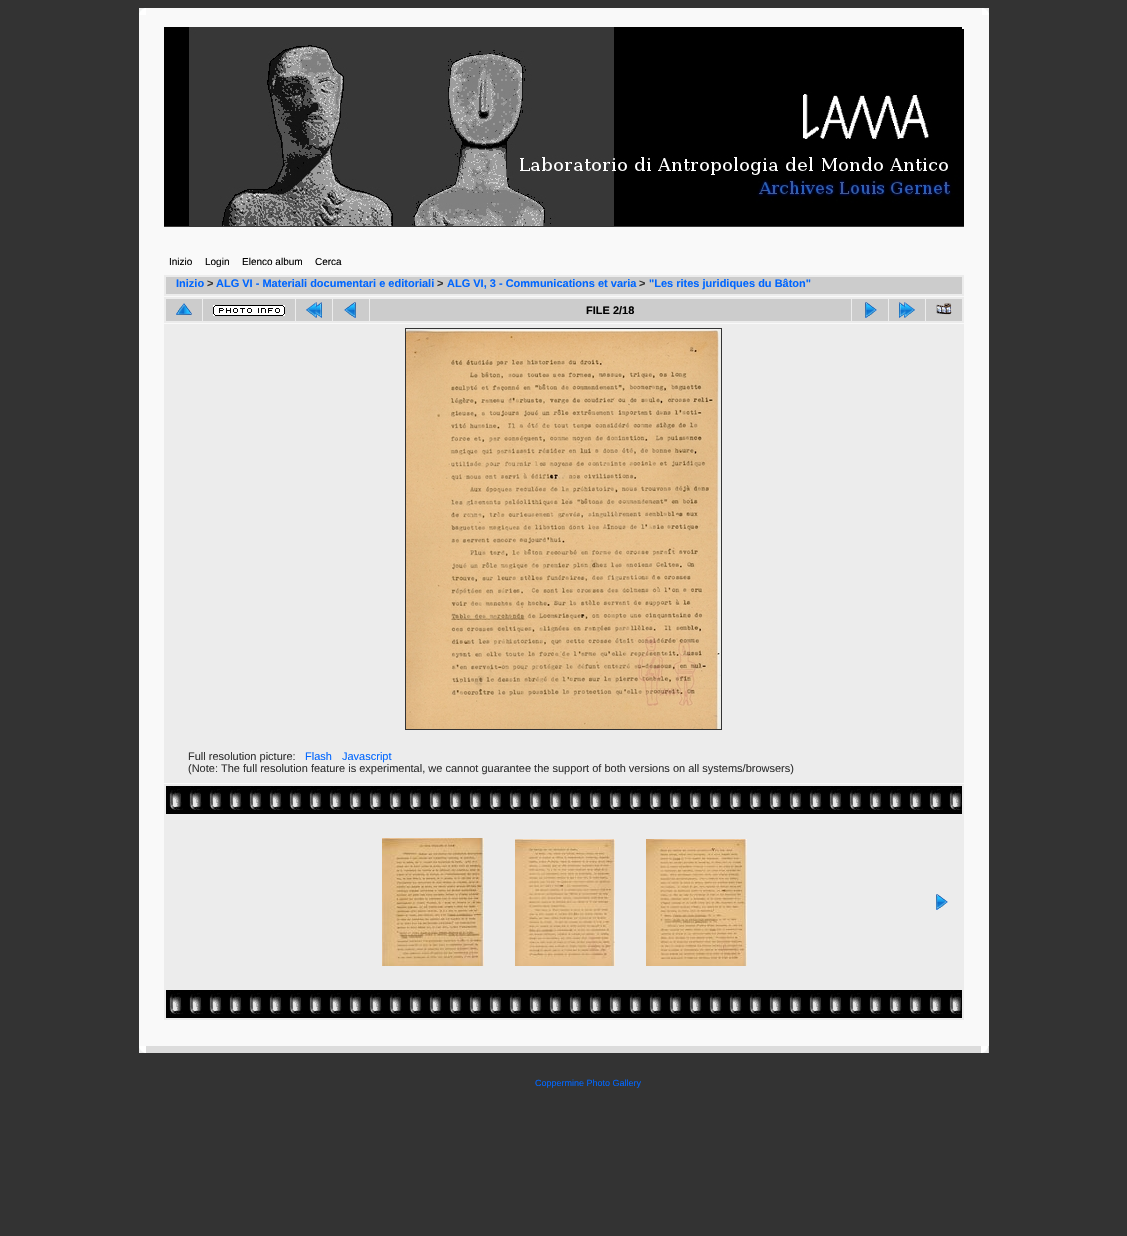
#include "include/core/SkBlurTypes.h"
#include "include/core/SkCanvas.h"
#include "include/core/SkData.h"
#include "include/core/SkFont.h"
#include "include/core/SkFontMgr.h"
#include "include/core/SkImage.h"
#include "include/core/SkMaskFilter.h"
#include "include/core/SkPaint.h"
#include "include/core/SkPathBuilder.h"
#include "include/core/SkTextBlob.h"
#include "include/effects/SkDashPathEffect.h"
#include "include/effects/SkGradientShader.h"
#include "include/utils/SkParsePath.h"

extern sk_sp<SkFontMgr> fontMgr;

static SkFont font(const char* family, int weight, float size, bool italic = false) {
    SkFontStyle style(weight, SkFontStyle::kNormal_Width,
        italic ? SkFontStyle::kItalic_Slant : SkFontStyle::kUpright_Slant);
    SkFont result(fontMgr->matchFamilyStyle(family, style), size);
    result.setSubpixel(true);
    return result;
}

static void drawLabel(SkCanvas* canvas, const char* s, float x, float y, const SkFont& font, SkColor color) {
    SkPaint ink(SkColor4f::FromColor(color));
    ink.setAntiAlias(true);
    canvas->drawString(s, x, y, font, ink);
}

static void fillRect(SkCanvas* canvas, float x, float y, float w, float h, SkColor color) {
    SkPaint ink(SkColor4f::FromColor(color));
    ink.setAntiAlias(true);
    canvas->drawRect(SkRect::MakeXYWH(x, y, w, h), ink);
}

static void drawPhoto(SkCanvas* canvas, const char* path, float x, float y, float w, float h) {
    auto image = SkImages::DeferredFromEncodedData(SkData::MakeFromFileName(path));
    canvas->drawImageRect(image, SkRect::MakeXYWH(x, y, w, h), SkSamplingOptions());
}

void draw(SkCanvas* canvas) {
    SkPaint paint;
    paint.setAntiAlias(true);
    canvas->clear(0xFF333333);
    drawPhoto(canvas, "assets/img1.png", 139, 8, 7, 7);
    fillRect(canvas, 146, 8, 836, 7, 0xFFF9F9F9);
    drawPhoto(canvas, "assets/img2.png", 982, 8, 7, 7);
    fillRect(canvas, 139, 15, 850, 1031, 0xFFF9F9F9);
    drawPhoto(canvas, "assets/img3.png", 164, 27, 800, 200);
    SkFont font1 = font("Liberation Sans", 400, 10);
    drawLabel(canvas, "Inizio", 169, 265, font1, 0xFF000000);
    drawLabel(canvas, "Login", 205, 265, font1, 0xFF000000);
    drawLabel(canvas, "Elenco album", 242, 265, font1, 0xFF000000);
    drawLabel(canvas, "Cerca", 315, 265, font1, 0xFF000000);
    fillRect(canvas, 164, 275, 800, 21, 0xFFECECEC);
    fillRect(canvas, 166, 277, 796, 17, 0xFFCCCCCC);
    SkFont font2 = font("Liberation Sans", 700, 11);
    drawLabel(canvas, "Inizio", 176, 287, font2, 0xFF0066FF);
    drawLabel(canvas, ">", 207, 287, font2, 0xFF333333);
    drawLabel(canvas, "ALG VI - Materiali documentari e editoriali", 216, 287, font2, 0xFF0066FF);
    drawLabel(canvas, ">", 437, 287, font2, 0xFF333333);
    drawLabel(canvas, "ALG VI, 3 - Communications et varia", 447, 287, font2, 0xFF0066FF);
    drawLabel(canvas, ">", 639, 287, font2, 0xFF333333);
    drawLabel(canvas, "\"Les rites juridiques du Bâton\"", 649, 287, font2, 0xFF0066FF);
    fillRect(canvas, 164, 297, 800, 26, 0xFFECECEC);
    fillRect(canvas, 166, 299, 36, 22, 0xFFCCCCCC);
    drawPhoto(canvas, "assets/img4.png", 176, 303, 16, 12);
    fillRect(canvas, 203, 299, 92, 22, 0xFFCCCCCC);
    drawPhoto(canvas, "assets/img5.png", 213, 305, 72, 11);
    fillRect(canvas, 296, 299, 36, 22, 0xFFCCCCCC);
    drawPhoto(canvas, "assets/img6.png", 306, 302, 16, 16);
    fillRect(canvas, 333, 299, 36, 22, 0xFFCCCCCC);
    drawPhoto(canvas, "assets/img7.png", 344, 302, 12, 16);
    fillRect(canvas, 370, 299, 481, 22, 0xFFCCCCCC);
    drawLabel(canvas, "FILE 2/18", 586, 314, font2, 0xFF000000);
    fillRect(canvas, 852, 299, 36, 22, 0xFFCCCCCC);
    drawPhoto(canvas, "assets/img8.png", 865, 302, 12, 16);
    fillRect(canvas, 889, 299, 36, 22, 0xFFCCCCCC);
    drawPhoto(canvas, "assets/img9.png", 899, 302, 16, 16);
    fillRect(canvas, 926, 299, 36, 22, 0xFFCCCCCC);
    drawPhoto(canvas, "assets/img10.png", 936, 303, 16, 12);
    fillRect(canvas, 164, 324, 800, 459, 0xFFECECEC);
    drawPhoto(canvas, "assets/img11.png", 406, 329, 315, 400);
    paint.setStroke(true);
    paint.setStrokeWidth(1);
    paint.setColor(0xFF333333);
    canvas->drawRect(SkRect::MakeXYWH(405.5f, 328.5f, 316, 401), paint);
    SkFont font3 = font("Liberation Sans", 400, 11);
    drawLabel(canvas, "Full resolution picture:", 188, 760, font3, 0xFF333333);
    drawLabel(canvas, "Flash", 305, 760, font3, 0xFF0066FF);
    drawLabel(canvas, "Javascript", 342, 760, font3, 0xFF0066FF);
    drawLabel(canvas, "(Note: The full resolution feature is experimental, we cannot guarantee the support of both versions on all systems/browsers)", 188, 772, font3, 0xFF333333);
    fillRect(canvas, 164, 784, 800, 236, 0xFFECECEC);
    drawPhoto(canvas, "assets/img12.png", 166, 786, 796, 28);
    drawPhoto(canvas, "assets/img13.png", 382, 838, 102, 128);
    drawPhoto(canvas, "assets/img14.png", 515, 839, 100, 127);
    drawPhoto(canvas, "assets/img15.png", 646, 839, 101, 127);
    drawPhoto(canvas, "assets/img16.png", 936, 894, 12, 16);
    drawPhoto(canvas, "assets/img12.png", 166, 990, 796, 28);
    drawPhoto(canvas, "assets/img17.png", 139, 1046, 7, 7);
    fillRect(canvas, 146, 1046, 843, 7, 0xFFDCDCDC);
    drawPhoto(canvas, "assets/img18.png", 981, 1046, 7, 7);
    SkFont font4 = font("Liberation Sans", 400, 9);
    drawLabel(canvas, "Coppermine Photo Gallery", 535, 1086, font4, 0xFF0066FF);
}
